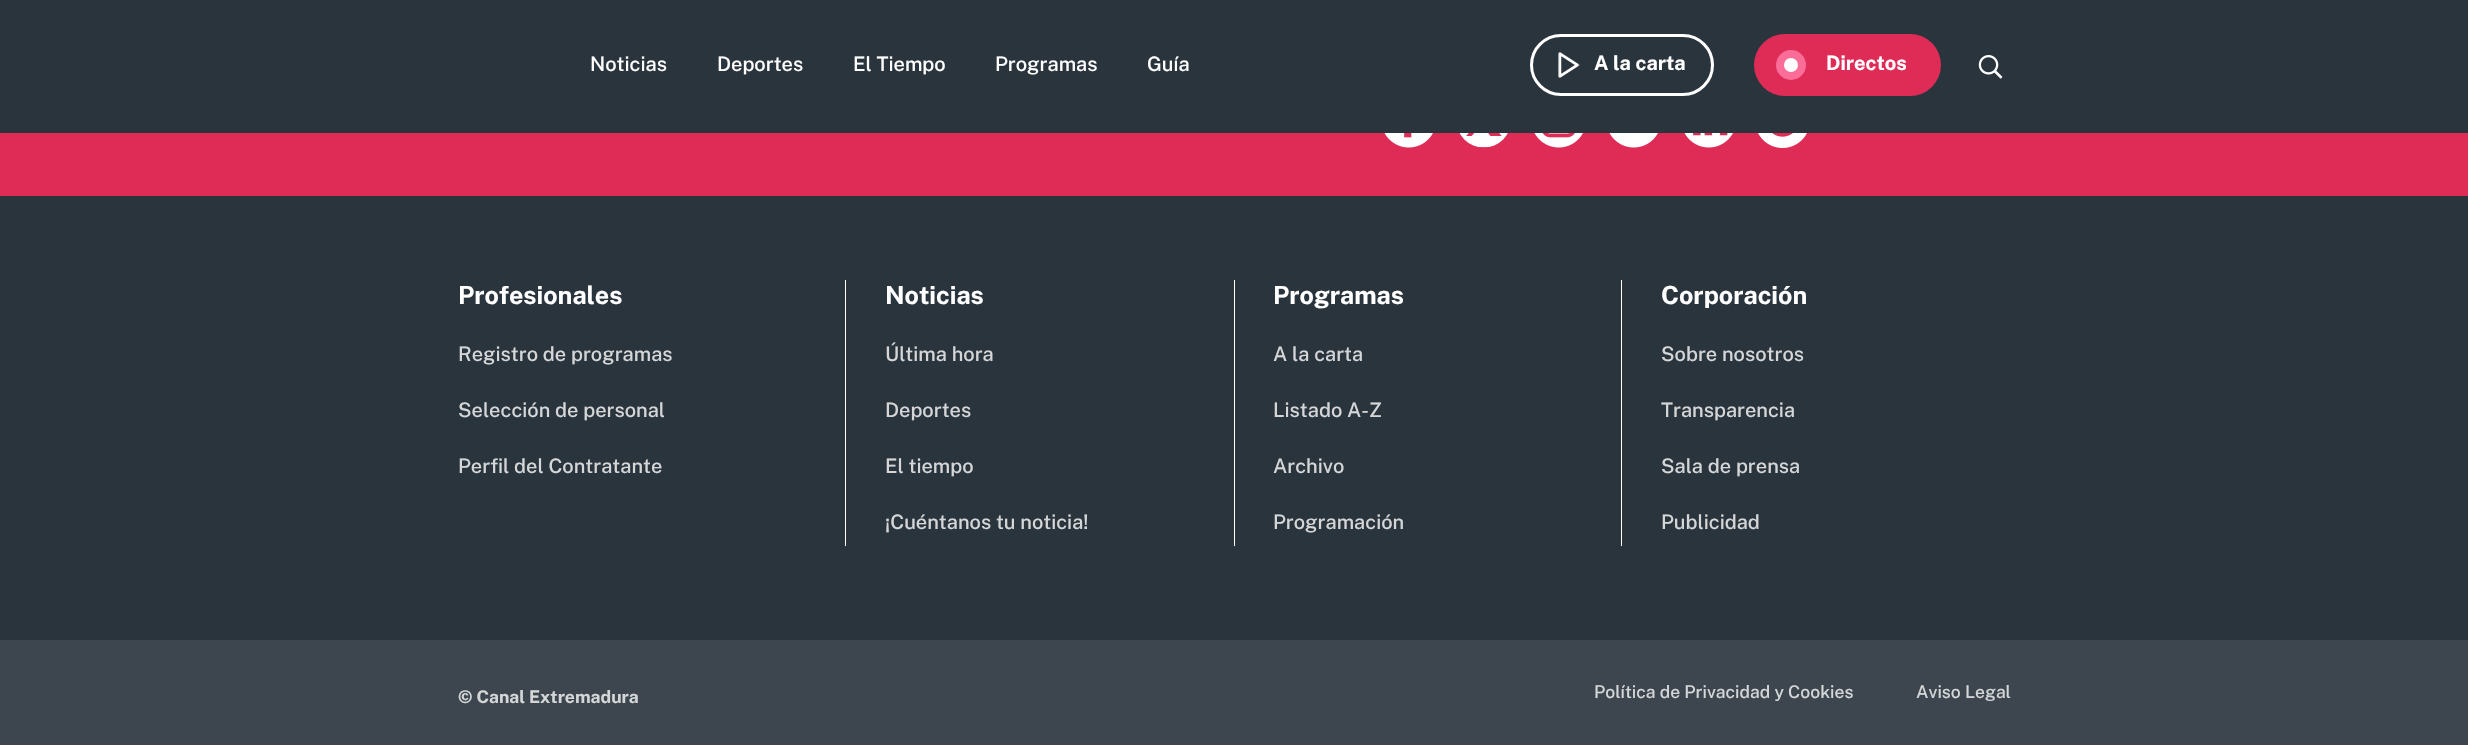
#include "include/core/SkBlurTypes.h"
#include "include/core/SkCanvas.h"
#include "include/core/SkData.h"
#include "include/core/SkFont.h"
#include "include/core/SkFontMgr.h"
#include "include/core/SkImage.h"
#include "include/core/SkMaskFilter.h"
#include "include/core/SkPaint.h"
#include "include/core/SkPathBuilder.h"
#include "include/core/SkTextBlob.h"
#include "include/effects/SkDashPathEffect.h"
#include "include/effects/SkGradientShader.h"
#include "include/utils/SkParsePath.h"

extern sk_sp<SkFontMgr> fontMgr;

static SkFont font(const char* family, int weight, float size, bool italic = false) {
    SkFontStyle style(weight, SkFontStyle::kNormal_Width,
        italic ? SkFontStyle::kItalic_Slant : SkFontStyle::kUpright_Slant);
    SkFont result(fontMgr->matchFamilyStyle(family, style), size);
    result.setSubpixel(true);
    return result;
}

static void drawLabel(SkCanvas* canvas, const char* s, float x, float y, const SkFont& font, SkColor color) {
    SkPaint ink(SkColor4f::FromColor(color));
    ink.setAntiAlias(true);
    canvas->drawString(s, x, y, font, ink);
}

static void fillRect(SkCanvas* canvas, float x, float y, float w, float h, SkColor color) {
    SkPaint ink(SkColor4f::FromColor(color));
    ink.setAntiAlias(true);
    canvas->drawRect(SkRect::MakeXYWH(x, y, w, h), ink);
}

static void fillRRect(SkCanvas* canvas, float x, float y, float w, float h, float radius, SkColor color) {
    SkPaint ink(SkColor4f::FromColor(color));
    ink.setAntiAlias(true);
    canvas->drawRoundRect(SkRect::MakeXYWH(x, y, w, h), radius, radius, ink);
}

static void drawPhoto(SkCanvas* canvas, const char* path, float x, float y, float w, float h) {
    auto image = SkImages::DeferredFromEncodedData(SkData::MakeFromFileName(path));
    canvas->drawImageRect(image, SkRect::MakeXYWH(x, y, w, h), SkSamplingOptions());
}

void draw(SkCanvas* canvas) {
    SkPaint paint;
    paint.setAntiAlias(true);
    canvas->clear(0xFFDE2C57);
    fillRect(canvas, 0, 0, 2468, 133, 0xFF2A343D);
    SkFont font1 = font("Public Sans", 500, 20);
    drawLabel(canvas, "Noticias", 590, 71, font1, 0xFFFFFFFF);
    drawLabel(canvas, "Deportes", 717, 71, font1, 0xFFFFFFFF);
    drawLabel(canvas, "El Tiempo", 853, 71, font1, 0xFFFFFFFF);
    drawLabel(canvas, "Programas", 995, 71, font1, 0xFFFFFFFF);
    drawLabel(canvas, "Guía", 1147, 71, font1, 0xFFFFFFFF);
    paint.setStroke(true);
    paint.setStrokeWidth(3);
    paint.setColor(0xFFFFFFFF);
    canvas->drawRoundRect(SkRect::MakeXYWH(1531.5f, 35.5f, 181, 59), 29.5f, 29.5f, paint);
    drawPhoto(canvas, "assets/img1.png", 1558, 52, 22, 26);
    SkFont font2 = font("Public Sans", 700, 20);
    drawLabel(canvas, "A la carta", 1594, 70, font2, 0xFFFFFFFF);
    fillRRect(canvas, 1754, 34, 187, 62, 31, 0xFFDE2C57);
    paint.setStroke(false);
    canvas->drawCircle(1791, 65, 11, paint);
    paint.setStroke(true);
    paint.setStrokeWidth(8);
    paint.setColor(0xFFFA6D99);
    canvas->drawCircle(1791, 65, 11, paint);
    drawLabel(canvas, "Directos", 1826, 70, font2, 0xFFFFFFFF);
    drawPhoto(canvas, "assets/img2.png", 1978, 55, 25, 24);
    drawPhoto(canvas, "assets/img3.png", 1384, 133, 49, 15);
    drawPhoto(canvas, "assets/img4.png", 1459, 133, 49, 15);
    drawPhoto(canvas, "assets/img5.png", 1534, 133, 49, 15);
    drawPhoto(canvas, "assets/img6.png", 1609, 133, 49, 15);
    drawPhoto(canvas, "assets/img7.png", 1684, 133, 49, 15);
    drawPhoto(canvas, "assets/img8.png", 1758, 133, 49, 15);
    fillRect(canvas, 0, 196, 2468, 444, 0xFF2A343D);
    fillRect(canvas, 845, 280, 1, 266, 0xFFFFFFFF);
    SkFont font3 = font("Public Sans", 700, 25);
    drawLabel(canvas, "Profesionales", 458, 304, font3, 0xFFFFFFFF);
    drawLabel(canvas, "Registro de programas", 458, 361, font1, 0xFFD4D6D8);
    drawLabel(canvas, "Selección de personal", 458, 417, font1, 0xFFD4D6D8);
    drawLabel(canvas, "Perfil del Contratante", 458, 473, font1, 0xFFD4D6D8);
    fillRect(canvas, 1234, 280, 1, 266, 0xFFFFFFFF);
    drawLabel(canvas, "Noticias", 885, 304, font3, 0xFFFFFFFF);
    drawLabel(canvas, "Última hora", 885, 361, font1, 0xFFD4D6D8);
    drawLabel(canvas, "Deportes", 885, 417, font1, 0xFFD4D6D8);
    drawLabel(canvas, "El tiempo", 885, 473, font1, 0xFFD4D6D8);
    drawLabel(canvas, "¡Cuéntanos tu noticia!", 885, 529, font1, 0xFFD4D6D8);
    fillRect(canvas, 1621, 280, 1, 266, 0xFFFFFFFF);
    drawLabel(canvas, "Programas", 1273, 304, font3, 0xFFFFFFFF);
    drawLabel(canvas, "A la carta", 1273, 361, font1, 0xFFD4D6D8);
    drawLabel(canvas, "Listado A-Z", 1273, 417, font1, 0xFFD4D6D8);
    drawLabel(canvas, "Archivo", 1273, 473, font1, 0xFFD4D6D8);
    drawLabel(canvas, "Programación", 1273, 529, font1, 0xFFD4D6D8);
    drawLabel(canvas, "Corporación", 1661, 304, font3, 0xFFFFFFFF);
    drawLabel(canvas, "Sobre nosotros", 1661, 361, font1, 0xFFD4D6D8);
    drawLabel(canvas, "Transparencia", 1661, 417, font1, 0xFFD4D6D8);
    drawLabel(canvas, "Sala de prensa", 1661, 473, font1, 0xFFD4D6D8);
    drawLabel(canvas, "Publicidad", 1661, 529, font1, 0xFFD4D6D8);
    fillRect(canvas, 0, 640, 2468, 105, 0xFF3D464E);
    SkFont font4 = font("Public Sans", 700, 17.5f);
    drawLabel(canvas, "© Canal Extremadura", 458, 703, font4, 0xFFD4D6D8);
    SkFont font5 = font("Public Sans", 500, 17.5f);
    drawLabel(canvas, "Política de Privacidad y Cookies", 1594, 698, font5, 0xFFD4D6D8);
    drawLabel(canvas, "Aviso Legal", 1916, 698, font5, 0xFFD4D6D8);
}
